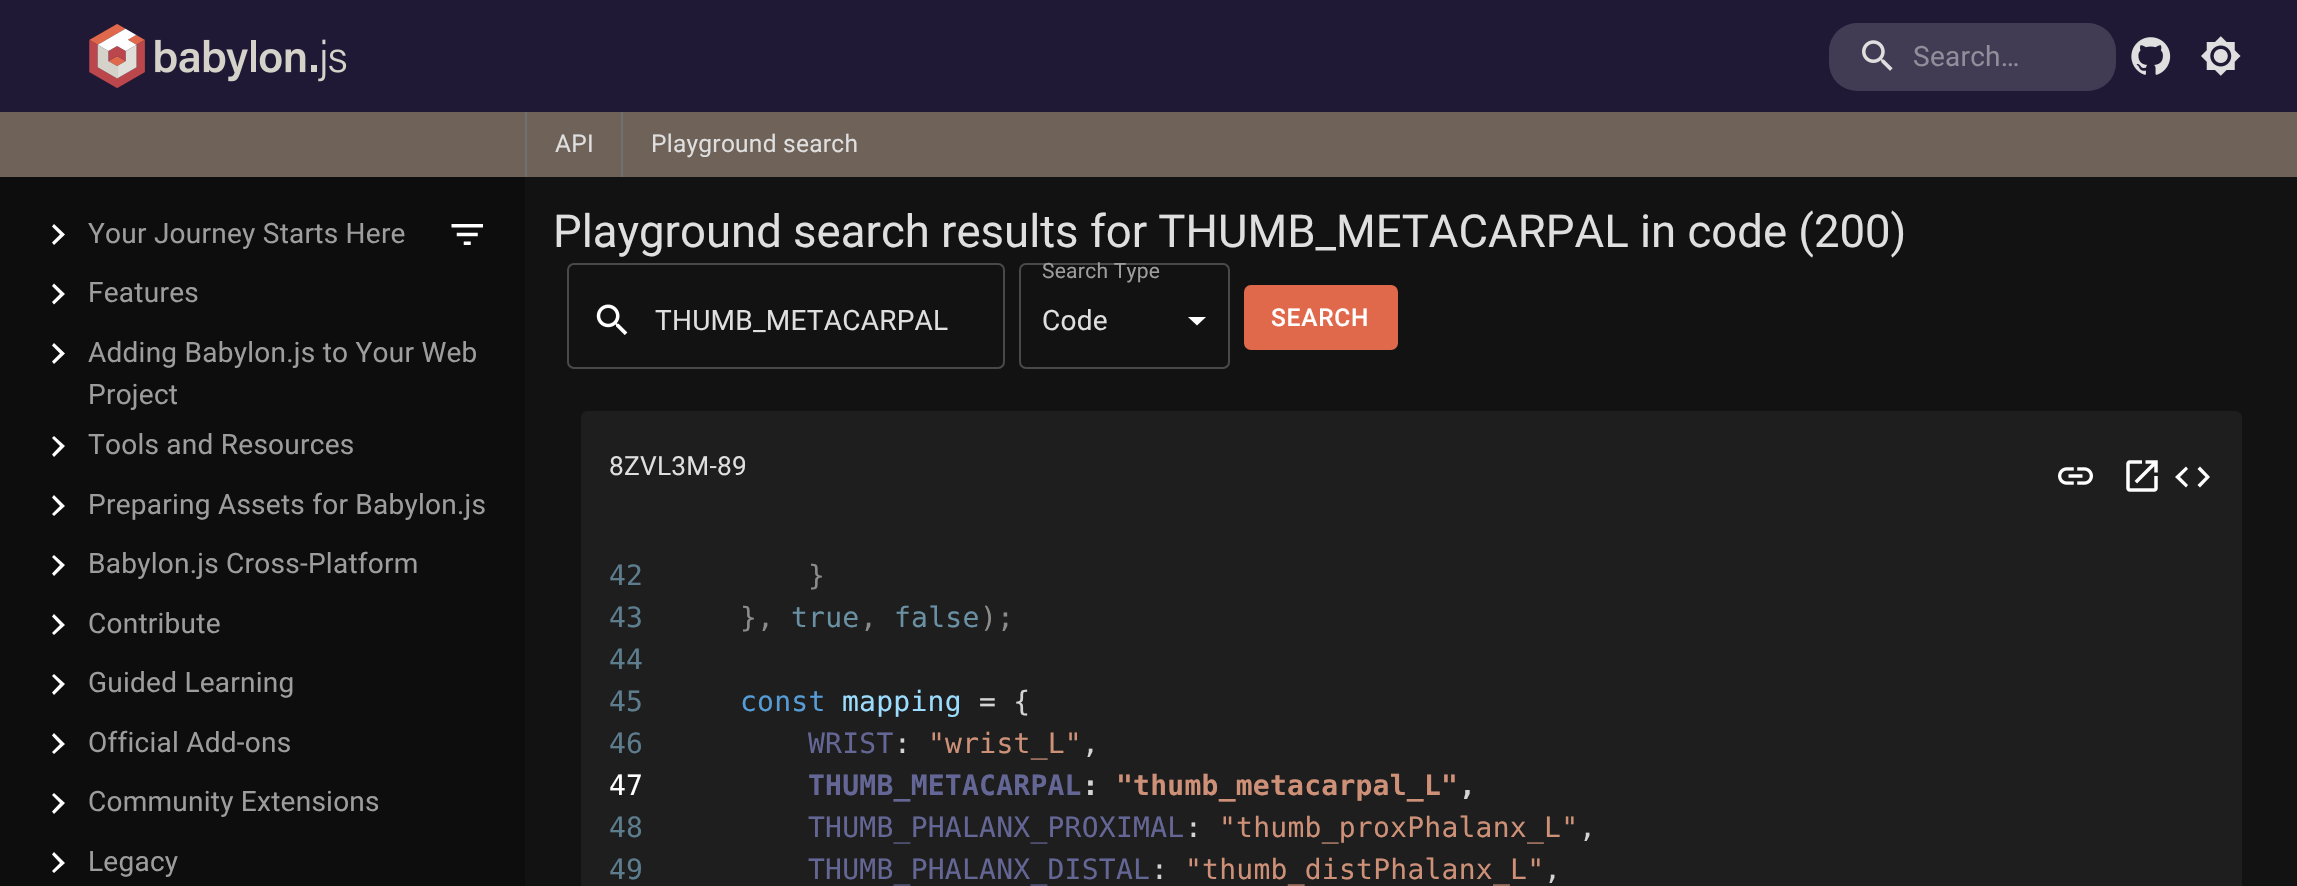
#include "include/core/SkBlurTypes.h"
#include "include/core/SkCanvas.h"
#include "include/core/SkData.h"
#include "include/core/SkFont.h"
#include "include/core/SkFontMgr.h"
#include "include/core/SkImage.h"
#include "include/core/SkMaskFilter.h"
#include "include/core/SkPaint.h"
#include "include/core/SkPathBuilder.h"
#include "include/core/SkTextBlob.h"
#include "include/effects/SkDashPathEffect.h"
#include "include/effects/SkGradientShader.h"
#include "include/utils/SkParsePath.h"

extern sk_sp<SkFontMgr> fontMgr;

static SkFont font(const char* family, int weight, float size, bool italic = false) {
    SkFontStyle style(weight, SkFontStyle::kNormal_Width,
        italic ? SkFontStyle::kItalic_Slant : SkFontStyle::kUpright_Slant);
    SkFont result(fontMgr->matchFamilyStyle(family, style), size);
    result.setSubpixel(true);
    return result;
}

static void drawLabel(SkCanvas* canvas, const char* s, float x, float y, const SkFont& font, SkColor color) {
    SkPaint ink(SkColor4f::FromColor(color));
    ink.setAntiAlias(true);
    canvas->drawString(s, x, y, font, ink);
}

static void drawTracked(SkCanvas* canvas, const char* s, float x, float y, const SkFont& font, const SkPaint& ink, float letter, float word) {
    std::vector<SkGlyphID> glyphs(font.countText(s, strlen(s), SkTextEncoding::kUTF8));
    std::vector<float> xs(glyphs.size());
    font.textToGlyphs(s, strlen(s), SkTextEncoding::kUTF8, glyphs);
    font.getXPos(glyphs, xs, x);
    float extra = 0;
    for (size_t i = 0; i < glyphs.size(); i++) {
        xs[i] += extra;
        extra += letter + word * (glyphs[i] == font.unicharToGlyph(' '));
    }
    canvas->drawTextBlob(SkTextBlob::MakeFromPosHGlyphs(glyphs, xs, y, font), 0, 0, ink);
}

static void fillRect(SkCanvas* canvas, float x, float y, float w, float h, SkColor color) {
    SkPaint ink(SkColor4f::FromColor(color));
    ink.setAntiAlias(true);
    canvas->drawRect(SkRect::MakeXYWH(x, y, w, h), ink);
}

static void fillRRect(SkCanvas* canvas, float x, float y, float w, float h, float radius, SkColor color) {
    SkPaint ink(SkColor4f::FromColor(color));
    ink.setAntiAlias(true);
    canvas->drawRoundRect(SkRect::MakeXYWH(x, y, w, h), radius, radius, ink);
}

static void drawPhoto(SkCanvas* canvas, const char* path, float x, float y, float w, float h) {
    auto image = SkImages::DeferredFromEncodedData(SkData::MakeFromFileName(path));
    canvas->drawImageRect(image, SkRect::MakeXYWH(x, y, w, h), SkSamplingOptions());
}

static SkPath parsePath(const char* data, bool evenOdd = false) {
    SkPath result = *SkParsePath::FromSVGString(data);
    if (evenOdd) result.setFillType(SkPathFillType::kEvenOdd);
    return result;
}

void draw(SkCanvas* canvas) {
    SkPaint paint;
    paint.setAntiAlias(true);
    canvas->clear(0xFF121212);
    fillRect(canvas, 0, 0, 2297, 112, 0xFF201936);
    drawPhoto(canvas, "assets/img1.png", 89, 24, 258, 65);
    fillRRect(canvas, 1829, 23, 287, 68, 28, 0xFF413C54);
    drawPhoto(canvas, "assets/img2.png", 1862, 40, 31, 31);
    SkFont font1 = font("Roboto", 400, 28);
    paint.setColor(0xFF908E9A);
    drawTracked(canvas, "Search…", 1913, 66, font1, paint, 0.25f, 0);
    drawPhoto(canvas, "assets/img3.png", 2131, 37, 40, 38);
    drawPhoto(canvas, "assets/img4.png", 2201, 36, 40, 40);
    fillRect(canvas, 0, 112, 2297, 65, 0xFF6E6259);
    fillRect(canvas, 621, 112, 2, 65, 0xFF707070);
    fillRect(canvas, 525, 112, 2, 65, 0xFF707070);
    SkFont font2 = font("Roboto", 400, 24.5f);
    paint.setColor(0xFFDFDFDF);
    drawTracked(canvas, "API", 555, 152, font2, paint, 0.25f, 0);
    drawTracked(canvas, "Playground search", 651, 152, font2, paint, 0.25f, 0);
    fillRect(canvas, 0, 177, 525, 709, 0xFF0D0D0D);
    paint.setColor(0xFFFFFFFF);
    canvas->drawPath(parsePath("M54 224L52 226.5L60 234.5L52 242.5L54 245L65 234.5Z"), paint);
    paint.setColor(0xFF9D9D9D);
    drawTracked(canvas, "Your Journey Starts Here", 88, 243, font1, paint, 0.25f, 0);
    paint.setColor(0xFFFFFFFF);
    canvas->drawPath(parsePath("M54 283.5L52 286L60 294L52 302L54 304.5L65 294Z"), paint);
    paint.setColor(0xFF9D9D9D);
    drawTracked(canvas, "Features", 88, 302, font1, paint, 0.25f, 0);
    paint.setColor(0xFFFFFFFF);
    canvas->drawPath(parsePath("M54 343L52 345.5L60 353.5L52 361.5L54 364L65 353.5Z"), paint);
    paint.setColor(0xFF9D9D9D);
    drawTracked(canvas, "Adding Babylon.js to Your Web", 88, 362, font1, paint, 0.25f, 0);
    drawTracked(canvas, "Project", 88, 404, font1, paint, 0.25f, 0);
    paint.setColor(0xFFFFFFFF);
    canvas->drawPath(parsePath("M54 436L52 438L60 446L52 454.5L54 457L65 446Z"), paint);
    paint.setColor(0xFF9D9D9D);
    drawTracked(canvas, "Tools and Resources", 88, 454, font1, paint, 0.25f, 0);
    paint.setColor(0xFFFFFFFF);
    canvas->drawPath(parsePath("M54 495L52 497.5L60 506L52 514L54 516L65 506Z"), paint);
    paint.setColor(0xFF9D9D9D);
    drawTracked(canvas, "Preparing Assets for Babylon.js", 88, 514, font1, paint, 0.25f, 0);
    paint.setColor(0xFFFFFFFF);
    canvas->drawPath(parsePath("M54 555L52 557L60 565L52 573.5L54 576L65 565Z"), paint);
    paint.setColor(0xFF9D9D9D);
    drawTracked(canvas, "Babylon.js Cross-Platform", 88, 573, font1, paint, 0.25f, 0);
    paint.setColor(0xFFFFFFFF);
    canvas->drawPath(parsePath("M54 614L52 616.5L60 625L52 633L54 635L65 625Z"), paint);
    paint.setColor(0xFF9D9D9D);
    drawTracked(canvas, "Contribute", 88, 633, font1, paint, 0.25f, 0);
    paint.setColor(0xFFFFFFFF);
    canvas->drawPath(parsePath("M54 674L52 676L60 684L52 692.5L54 695L65 684Z"), paint);
    paint.setColor(0xFF9D9D9D);
    drawTracked(canvas, "Guided Learning", 88, 692, font1, paint, 0.25f, 0);
    paint.setColor(0xFFFFFFFF);
    canvas->drawPath(parsePath("M54 733L52 735.5L60 744L52 752L54 754L65 744Z"), paint);
    paint.setColor(0xFF9D9D9D);
    drawTracked(canvas, "Official Add-ons", 88, 752, font1, paint, 0.25f, 0);
    paint.setColor(0xFFFFFFFF);
    canvas->drawPath(parsePath("M54 793L52 795L60 803L52 811.5L54 814L65 803Z"), paint);
    paint.setColor(0xFF9D9D9D);
    drawTracked(canvas, "Community Extensions", 88, 811, font1, paint, 0.25f, 0);
    paint.setColor(0xFFFFFFFF);
    canvas->drawPath(parsePath("M54 852L52 854.5L60 863L52 871L54 873L65 863Z"), paint);
    paint.setColor(0xFF9D9D9D);
    drawTracked(canvas, "Legacy", 88, 871, font1, paint, 0.25f, 0);
    drawPhoto(canvas, "assets/img5.png", 451, 224, 32, 21);
    SkFont font3 = font("Roboto", 400, 45.5f);
    drawLabel(canvas, "Playground search results for THUMB_METACARPAL in code (200)", 553, 247, font3, 0xFFDFDFDF);
    drawPhoto(canvas, "assets/img6.png", 596, 304, 32, 31);
    paint.setStroke(true);
    paint.setStrokeWidth(2);
    paint.setColor(0xFF494949);
    canvas->drawRoundRect(SkRect::MakeXYWH(568, 264, 436, 104), 6, 6, paint);
    paint.setStroke(false);
    paint.setColor(0xFFDFDFDF);
    drawTracked(canvas, "THUMB_METACARPAL", 655, 330, font1, paint, 0.25f, 0);
    paint.setColor(0xFFFFFFFF);
    canvas->drawPath(parsePath("M1188 317L1197 325.5L1206 317Z"), paint);
    paint.setStroke(true);
    paint.setColor(0xFF494949);
    canvas->drawRoundRect(SkRect::MakeXYWH(1020, 264, 209, 104), 6, 6, paint);
    SkFont font4 = font("Roboto", 400, 21);
    paint.setStroke(false);
    paint.setColor(0xFF9D9D9D);
    drawTracked(canvas, "Search Type", 1042, 278, font4, paint, 0.25f, 0);
    paint.setColor(0xFFDFDFDF);
    drawTracked(canvas, "Code", 1042, 330, font1, paint, 0.25f, 0);
    fillRRect(canvas, 1244, 285, 154, 65, 7, 0xFFE0684B);
    SkFont font5 = font("Roboto", 500, 24.5f);
    paint.setColor(0xFFFFFFFF);
    drawTracked(canvas, "SEARCH", 1271, 326, font5, paint, 0.75f, 0);
    paint.setColor(0xFF1E1E1E);
    canvas->drawPath(parsePath("M588 411H2235C2239 411 2242 414 2242 418V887H581V418C581 414 584 411 588 411Z"), paint);
    SkFont font6 = font("Roboto", 400, 26.25f);
    paint.setColor(0xFFDFDFDF);
    drawTracked(canvas, "8ZVL3M-89", 609, 475, font6, paint, 0.25f, 0);
    drawPhoto(canvas, "assets/img7.png", 2058, 467, 35, 18);
    drawPhoto(canvas, "assets/img8.png", 2126, 460, 32, 32);
    paint.setColor(0xFFFFFFFF);
    canvas->drawPath(parsePath("M2197.5 469L2205.5 477L2197.5 485L2200 487.5L2210 477L2200 466.5ZM2188 469L2180 477L2188 485L2186 487.5L2175 477L2186 466.5Z"), paint);
    SkFont font7 = font("DejaVu Sans Mono", 400, 28);
    paint.setColor(0xFF5D7D8E);
    drawTracked(canvas, "42", 609, 585, font7, paint, 0.25f, 0);
    paint.setColor(0xFF8B8B8B);
    drawTracked(canvas, "}", 808, 585, font7, paint, 0.25f, 0);
    paint.setColor(0xFF5D7D8E);
    drawTracked(canvas, "43", 609, 627, font7, paint, 0.25f, 0);
    paint.setColor(0xFF8B8B8B);
    drawTracked(canvas, "},", 740, 627, font7, paint, 0.25f, 0);
    paint.setColor(0xFF6A90A4);
    drawTracked(canvas, "true", 791, 627, font7, paint, 0.25f, 0);
    paint.setColor(0xFF8B8B8B);
    drawTracked(canvas, ",", 860, 627, font7, paint, 0.25f, 0);
    paint.setColor(0xFF6A90A4);
    drawTracked(canvas, "false", 894, 627, font7, paint, 0.25f, 0);
    paint.setColor(0xFF8B8B8B);
    drawTracked(canvas, ");", 980, 627, font7, paint, 0.25f, 0);
    paint.setColor(0xFF5D7D8E);
    drawTracked(canvas, "44", 609, 669, font7, paint, 0.25f, 0);
    drawTracked(canvas, "45", 609, 711, font7, paint, 0.25f, 0);
    paint.setColor(0xFF569CD6);
    drawTracked(canvas, "const", 740, 711, font7, paint, 0.25f, 0);
    paint.setColor(0xFF9CDCFE);
    drawTracked(canvas, "mapping", 842, 711, font7, paint, 0.25f, 0);
    paint.setColor(0xFFD4D4D4);
    drawTracked(canvas, "= {", 979, 711, font7, paint, 0.25f, 0);
    paint.setColor(0xFF5D7D8E);
    drawTracked(canvas, "46", 609, 753, font7, paint, 0.25f, 0);
    paint.setColor(0xFF646695);
    drawTracked(canvas, "WRIST", 808, 753, font7, paint, 0.25f, 0);
    paint.setColor(0xFFD4D4D4);
    drawTracked(canvas, ":", 894, 753, font7, paint, 0.25f, 0);
    paint.setColor(0xFFCE9178);
    drawTracked(canvas, "\"wrist_L\"", 928, 753, font7, paint, 0.25f, 0);
    paint.setColor(0xFFD4D4D4);
    drawTracked(canvas, ",", 1082, 753, font7, paint, 0.25f, 0);
    paint.setColor(0xFFFFFFFF);
    drawTracked(canvas, "47", 609, 795, font7, paint, 0.25f, 0);
    SkFont font8 = font("DejaVu Sans Mono", 700, 28);
    paint.setColor(0xFF646695);
    drawTracked(canvas, "THUMB_METACARPAL", 808, 795, font8, paint, 0.25f, 0);
    paint.setColor(0xFFD4D4D4);
    drawTracked(canvas, ":", 1082, 795, font8, paint, 0.25f, 0);
    paint.setColor(0xFFCE9178);
    drawTracked(canvas, "\"thumb_metacarpal_L\"", 1116, 795, font8, paint, 0.25f, 0);
    paint.setColor(0xFFD4D4D4);
    drawTracked(canvas, ",", 1459, 795, font8, paint, 0.25f, 0);
    paint.setColor(0xFF5D7D8E);
    drawTracked(canvas, "48", 609, 837, font7, paint, 0.25f, 0);
    paint.setColor(0xFF646695);
    drawTracked(canvas, "THUMB_PHALANX_PROXIMAL", 808, 837, font7, paint, 0.25f, 0);
    paint.setColor(0xFFD4D4D4);
    drawTracked(canvas, ":", 1185, 837, font7, paint, 0.25f, 0);
    paint.setColor(0xFFCE9178);
    drawTracked(canvas, "\"thumb_proxPhalanx_L\"", 1219, 837, font7, paint, 0.25f, 0);
    paint.setColor(0xFFD4D4D4);
    drawTracked(canvas, ",", 1579, 837, font7, paint, 0.25f, 0);
    paint.setColor(0xFF5D7D8E);
    drawTracked(canvas, "49", 609, 879, font7, paint, 0.25f, 0);
    paint.setColor(0xFF646695);
    drawTracked(canvas, "THUMB_PHALANX_DISTAL", 808, 879, font7, paint, 0.25f, 0);
    paint.setColor(0xFFD4D4D4);
    drawTracked(canvas, ":", 1151, 879, font7, paint, 0.25f, 0);
    paint.setColor(0xFFCE9178);
    drawTracked(canvas, "\"thumb_distPhalanx_L\"", 1185, 879, font7, paint, 0.25f, 0);
    paint.setColor(0xFFD4D4D4);
    drawTracked(canvas, ",", 1544, 879, font7, paint, 0.25f, 0);
}
